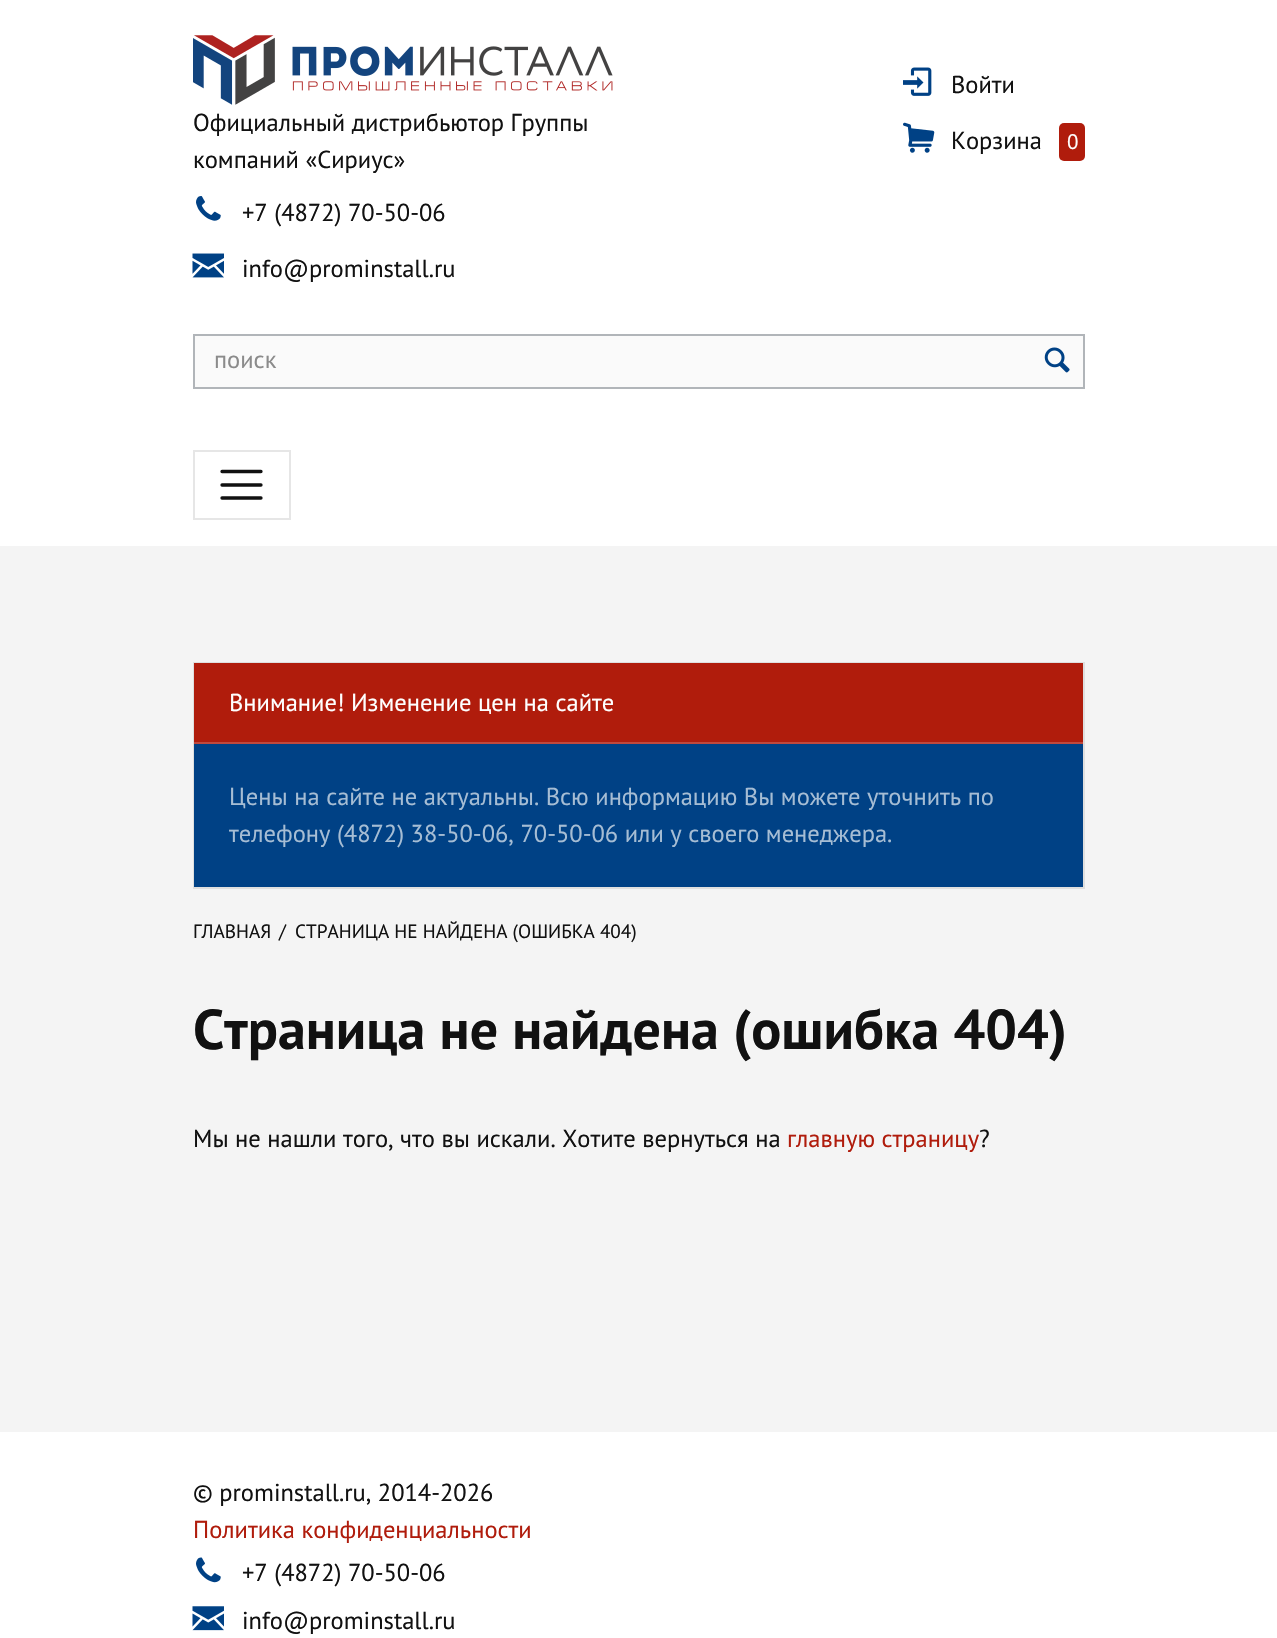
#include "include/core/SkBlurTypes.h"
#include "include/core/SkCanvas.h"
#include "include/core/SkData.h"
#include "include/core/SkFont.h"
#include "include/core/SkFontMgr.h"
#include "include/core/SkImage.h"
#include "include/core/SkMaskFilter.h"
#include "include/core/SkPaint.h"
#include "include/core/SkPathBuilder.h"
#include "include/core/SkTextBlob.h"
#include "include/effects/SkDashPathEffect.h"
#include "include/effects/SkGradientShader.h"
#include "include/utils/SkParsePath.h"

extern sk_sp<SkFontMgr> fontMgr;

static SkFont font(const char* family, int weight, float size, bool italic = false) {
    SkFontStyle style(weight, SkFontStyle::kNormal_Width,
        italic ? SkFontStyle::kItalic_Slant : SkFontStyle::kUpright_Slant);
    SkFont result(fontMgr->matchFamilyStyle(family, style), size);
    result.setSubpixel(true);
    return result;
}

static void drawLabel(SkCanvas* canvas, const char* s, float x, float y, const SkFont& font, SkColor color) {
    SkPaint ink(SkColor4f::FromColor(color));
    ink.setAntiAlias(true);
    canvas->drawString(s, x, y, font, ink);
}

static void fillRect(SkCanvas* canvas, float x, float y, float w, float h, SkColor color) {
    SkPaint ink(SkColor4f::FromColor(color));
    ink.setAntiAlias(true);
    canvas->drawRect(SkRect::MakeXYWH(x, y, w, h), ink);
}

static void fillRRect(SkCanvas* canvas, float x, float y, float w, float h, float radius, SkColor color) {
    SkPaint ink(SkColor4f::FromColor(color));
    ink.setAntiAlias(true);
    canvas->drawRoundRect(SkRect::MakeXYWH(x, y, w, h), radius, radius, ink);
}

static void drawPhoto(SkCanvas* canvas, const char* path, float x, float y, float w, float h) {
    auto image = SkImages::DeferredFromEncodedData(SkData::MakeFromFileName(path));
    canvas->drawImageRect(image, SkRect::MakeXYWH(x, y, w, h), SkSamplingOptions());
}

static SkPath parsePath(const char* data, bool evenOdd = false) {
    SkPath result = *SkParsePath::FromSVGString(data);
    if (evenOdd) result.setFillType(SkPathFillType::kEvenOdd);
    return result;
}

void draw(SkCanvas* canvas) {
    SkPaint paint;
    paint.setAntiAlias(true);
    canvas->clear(0xFFFFFFFF);
    drawPhoto(canvas, "assets/img1.png", 193, 35, 420, 70);
    SkFont font1 = font("PT Sans", 400, 24.5f);
    drawLabel(canvas, "Официальный дистрибьютор Группы", 193, 131, font1, 0xFF111111);
    drawLabel(canvas, "компаний «Сириус»", 193, 168, font1, 0xFF111111);
    drawPhoto(canvas, "assets/img2.png", 903, 67, 29, 29);
    drawLabel(canvas, "Войти", 951, 93, font1, 0xFF111111);
    drawPhoto(canvas, "assets/img3.png", 903, 122, 32, 31);
    drawLabel(canvas, "Корзина", 951, 149, font1, 0xFF111111);
    fillRRect(canvas, 1059, 123, 26, 38, 5, 0xFFB01C0C);
    SkFont font2 = font("PT Sans", 400, 21);
    drawLabel(canvas, "0", 1067, 149, font2, 0xFFFFFFFF);
    drawPhoto(canvas, "assets/img4.png", 196, 196, 25, 25);
    drawLabel(canvas, "+7 (4872) 70-50-06", 242, 221, font1, 0xFF111111);
    drawPhoto(canvas, "assets/img5.png", 192, 253, 32, 25);
    drawLabel(canvas, "info@prominstall.ru", 242, 277, font1, 0xFF111111);
    fillRect(canvas, 195, 336, 888, 51, 0xFFFAFAFA);
    fillRect(canvas, 193, 334, 892, 2, 0xFFB1B5B9);
    fillRect(canvas, 193, 387, 838, 2, 0xFFB1B5B9);
    fillRect(canvas, 193, 334, 2, 55, 0xFFB1B5B9);
    drawLabel(canvas, "поиск", 214, 368, font1, 0xFF8B8B8B);
    fillRect(canvas, 1083, 334, 2, 55, 0xFFB1B5B9);
    fillRect(canvas, 1031, 387, 54, 2, 0xFFB1B5B9);
    drawPhoto(canvas, "assets/img6.png", 1044, 347, 26, 26);
    paint.setStroke(true);
    paint.setStrokeWidth(2);
    paint.setColor(0xFFE6E6E6);
    canvas->drawRect(SkRect::MakeXYWH(194, 451, 96, 68), paint);
    paint.setStrokeWidth(3.3f);
    paint.setStrokeCap(SkPaint::kRound_Cap);
    paint.setColor(0xFF111111);
    canvas->drawPath(parsePath("M222 471.5H261M222 485H261M222 498H261"), paint);
    fillRect(canvas, 0, 546, 1277, 886, 0xFFF4F4F4);
    paint.setStrokeWidth(2);
    paint.setStrokeCap(SkPaint::kButt_Cap);
    paint.setColor(0xFFDFDFDF);
    canvas->drawRect(SkRect::MakeXYWH(194, 663, 890, 225), paint);
    fillRect(canvas, 194, 663, 889, 79, 0xFFB01C0C);
    fillRect(canvas, 194, 742, 889, 2, 0xFFC0493D);
    drawLabel(canvas, "Внимание! Изменение цен на сайте", 229, 711, font1, 0xFFFFFFFF);
    fillRect(canvas, 194, 744, 889, 143, 0xFF004185);
    drawLabel(canvas, "Цены на сайте не актуальны. Всю информацию Вы можете уточнить по", 229, 805, font1, 0xFFA6BDD4);
    drawLabel(canvas, "телефону (4872) 38-50-06, 70-50-06 или у своего менеджера.", 229, 842, font1, 0xFFA6BDD4);
    SkFont font3 = font("PT Sans", 400, 19.25f);
    drawLabel(canvas, "ГЛАВНАЯ", 193, 938, font3, 0xFF111111);
    drawLabel(canvas, "/", 279, 938, font3, 0xFF111111);
    drawLabel(canvas, "СТРАНИЦА НЕ НАЙДЕНА (ОШИБКА 404)", 295, 938, font3, 0xFF111111);
    SkFont font4 = font("PT Sans", 700, 56);
    drawLabel(canvas, "Страница не найдена (ошибка 404)", 193, 1049, font4, 0xFF111111);
    drawLabel(canvas, "Мы не нашли того, что вы искали. Хотите вернуться на", 193, 1147, font1, 0xFF111111);
    drawLabel(canvas, "главную страницу", 787, 1147, font1, 0xFFB01C0C);
    drawLabel(canvas, "?", 979, 1147, font1, 0xFF111111);
    drawLabel(canvas, "© prominstall.ru, 2014-2026", 193, 1501, font1, 0xFF111111);
    drawLabel(canvas, "Политика конфиденциальности", 193, 1538, font1, 0xFFB01C0C);
    drawPhoto(canvas, "assets/img7.png", 196, 1557, 25, 26);
    drawLabel(canvas, "+7 (4872) 70-50-06", 242, 1581, font1, 0xFF111111);
    drawPhoto(canvas, "assets/img8.png", 192, 1606, 32, 25);
    drawLabel(canvas, "info@prominstall.ru", 242, 1629, font1, 0xFF111111);
}
